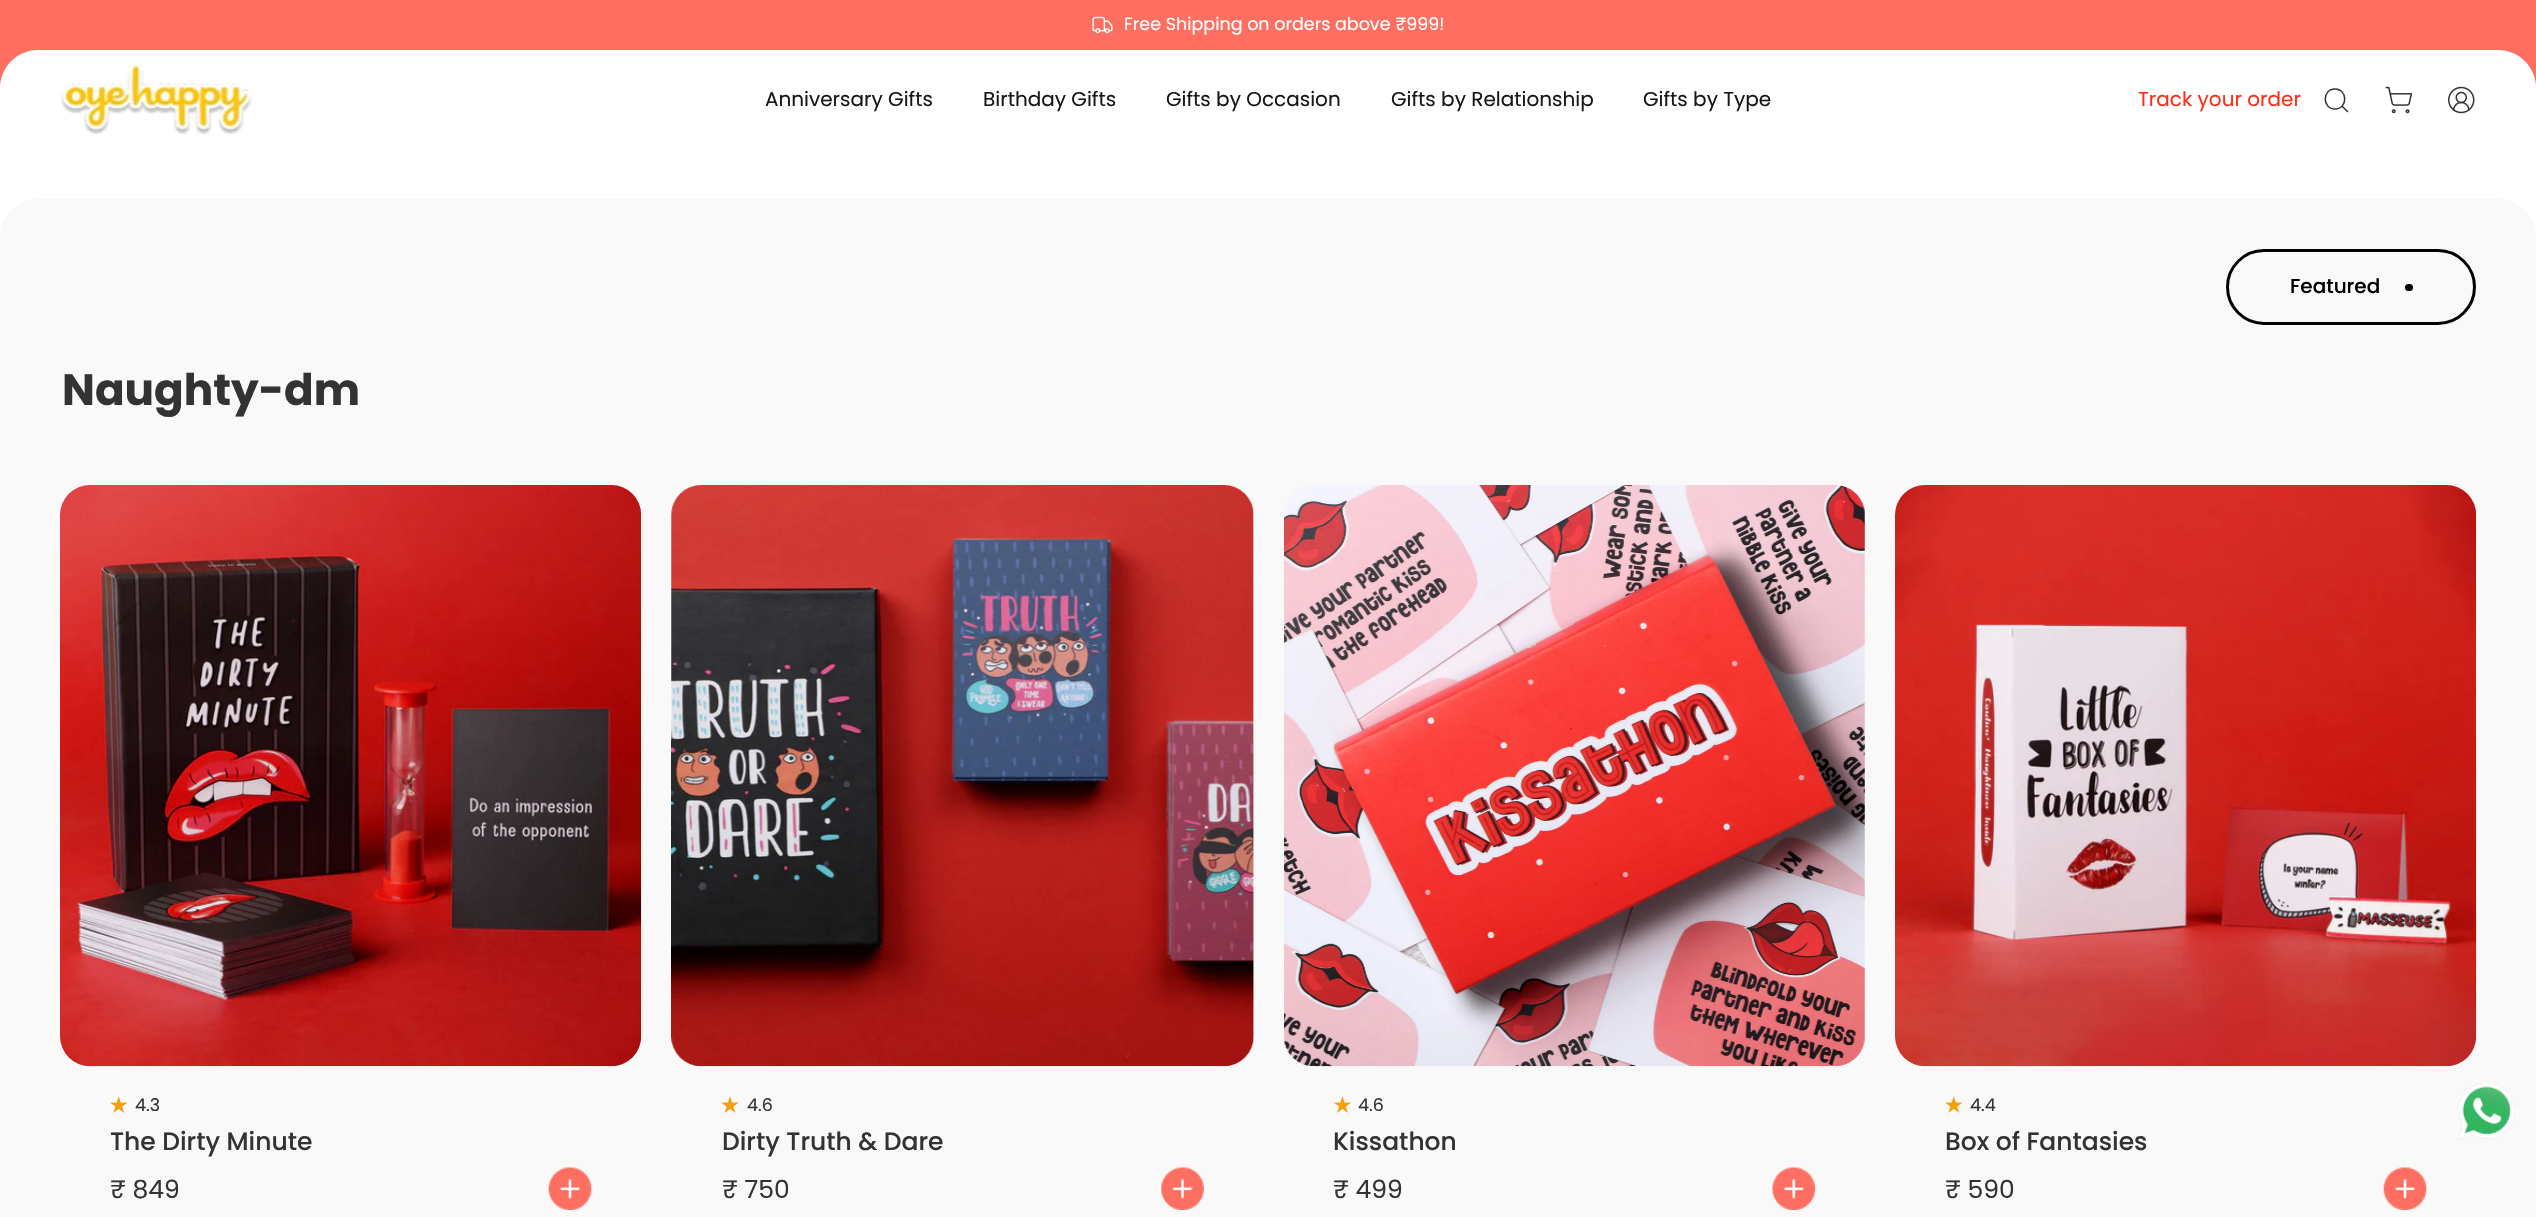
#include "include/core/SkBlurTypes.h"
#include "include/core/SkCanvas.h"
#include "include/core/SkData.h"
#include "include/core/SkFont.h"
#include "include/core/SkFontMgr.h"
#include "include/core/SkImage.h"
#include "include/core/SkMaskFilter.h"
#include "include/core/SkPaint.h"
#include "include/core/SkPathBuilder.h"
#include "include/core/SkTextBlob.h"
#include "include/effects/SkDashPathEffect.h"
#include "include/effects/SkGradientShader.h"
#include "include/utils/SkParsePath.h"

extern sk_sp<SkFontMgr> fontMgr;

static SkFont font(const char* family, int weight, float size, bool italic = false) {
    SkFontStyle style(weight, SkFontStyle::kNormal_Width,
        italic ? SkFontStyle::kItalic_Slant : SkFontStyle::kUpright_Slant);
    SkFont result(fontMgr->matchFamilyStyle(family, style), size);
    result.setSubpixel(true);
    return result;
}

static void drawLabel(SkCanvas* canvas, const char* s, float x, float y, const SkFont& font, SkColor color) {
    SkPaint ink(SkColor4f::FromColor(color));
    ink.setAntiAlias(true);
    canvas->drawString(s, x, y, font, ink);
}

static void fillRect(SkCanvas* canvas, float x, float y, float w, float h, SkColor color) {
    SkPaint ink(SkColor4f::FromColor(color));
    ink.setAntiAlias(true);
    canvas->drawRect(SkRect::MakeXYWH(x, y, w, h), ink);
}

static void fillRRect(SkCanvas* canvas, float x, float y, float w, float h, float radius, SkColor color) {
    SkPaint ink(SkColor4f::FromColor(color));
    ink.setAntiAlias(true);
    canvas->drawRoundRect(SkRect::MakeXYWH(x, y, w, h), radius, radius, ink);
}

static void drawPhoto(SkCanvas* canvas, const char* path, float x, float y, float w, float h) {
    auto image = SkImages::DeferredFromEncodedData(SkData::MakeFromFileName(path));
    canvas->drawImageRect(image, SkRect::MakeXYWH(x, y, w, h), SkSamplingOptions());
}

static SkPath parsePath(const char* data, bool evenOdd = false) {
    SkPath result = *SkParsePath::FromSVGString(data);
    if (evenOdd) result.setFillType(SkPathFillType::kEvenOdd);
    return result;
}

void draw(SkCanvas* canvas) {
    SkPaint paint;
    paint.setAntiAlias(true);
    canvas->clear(0xFFFFFFFF);
    fillRect(canvas, 0, 0, 2536, 38, 0xFFFF6F61);
    paint.setColor(0xFFFF6F61);
    canvas->drawPath(parsePath("M38 0H2498C2519 0 2536 17 2536 38V88H0V38C0 17 17 0 38 0Z"), paint);
    drawPhoto(canvas, "assets/img1.png", 1092, 16, 21, 18);
    SkFont font1 = font("Poppins", 400, 17.5f);
    drawLabel(canvas, "Free Shipping on orders above ₹999!", 1124, 30, font1, 0xFFFFFFFF);
    paint.setColor(0xFFFFFFFF);
    canvas->drawPath(parsePath("M38 50H2498C2519 50 2536 67 2536 88V149H0V88C0 67 17 50 38 50Z"), paint);
    drawPhoto(canvas, "assets/img2.png", 61, 63, 191, 72);
    SkFont font2 = font("Poppins", 400, 20);
    drawLabel(canvas, "Anniversary Gifts", 765, 106, font2, 0xFF171717);
    drawLabel(canvas, "Birthday Gifts", 983, 106, font2, 0xFF171717);
    drawLabel(canvas, "Gifts by Occasion", 1166, 106, font2, 0xFF171717);
    drawLabel(canvas, "Gifts by Relationship", 1391, 106, font2, 0xFF171717);
    drawLabel(canvas, "Gifts by Type", 1643, 106, font2, 0xFF171717);
    drawLabel(canvas, "Track your order", 2138, 106, font2, 0xFFFD2E19);
    paint.setStroke(true);
    paint.setStrokeWidth(1.5f);
    paint.setStrokeCap(SkPaint::kRound_Cap);
    paint.setStrokeJoin(SkPaint::kRound_Join);
    paint.setColor(0xFF333333);
    canvas->drawPath(parsePath("M2335 109C2348 109 2348 89 2335 89C2322 89 2322 109 2335 109ZM2347.5 111.5L2342 106"), paint);
    drawPhoto(canvas, "assets/img3.png", 2385, 86, 28, 28);
    drawPhoto(canvas, "assets/img4.png", 2448, 86, 27, 28);
    fillRRect(canvas, 0, 199, 2536, 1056, 38, 0xFFF9F9F9);
    paint.setStrokeWidth(3);
    paint.setStrokeCap(SkPaint::kButt_Cap);
    paint.setStrokeJoin(SkPaint::kMiter_Join);
    paint.setColor(0xFF000000);
    canvas->drawRoundRect(SkRect::MakeXYWH(2227.5f, 250.5f, 247, 73), 36.5f, 36.5f, paint);
    SkFont font3 = font("Poppins", 500, 20);
    drawLabel(canvas, "Featured", 2290, 293, font3, 0xFF000000);
    fillRRect(canvas, 2405, 284, 8, 7, 3.5f, 0xFF000000);
    SkFont font4 = font("Poppins", 700, 43.75f);
    drawLabel(canvas, "Naughty-dm", 62, 405, font4, 0xFF333333);
    drawPhoto(canvas, "assets/img5.png", 60, 485, 582, 582);
    drawPhoto(canvas, "assets/img6.png", 110, 1096, 18, 17);
    drawLabel(canvas, "4.3", 135, 1111, font1, 0xFF333333);
    SkFont font5 = font("Poppins", 500, 25);
    drawLabel(canvas, "The Dirty Minute", 110, 1150, font5, 0xFF333333);
    SkFont font6 = font("Poppins", 400, 25);
    drawLabel(canvas, "₹ 849", 110, 1198, font6, 0xFF333333);
    drawPhoto(canvas, "assets/img7.png", 548, 1167, 44, 43);
    drawPhoto(canvas, "assets/img8.png", 671, 485, 583, 582);
    drawPhoto(canvas, "assets/img9.png", 721, 1096, 18, 17);
    drawLabel(canvas, "4.6", 747, 1111, font1, 0xFF333333);
    drawLabel(canvas, "Dirty Truth & Dare", 722, 1150, font5, 0xFF333333);
    drawLabel(canvas, "₹ 750", 722, 1198, font6, 0xFF333333);
    drawPhoto(canvas, "assets/img10.png", 1161, 1167, 43, 43);
    drawPhoto(canvas, "assets/img11.png", 1284, 485, 581, 582);
    drawPhoto(canvas, "assets/img12.png", 1334, 1096, 17, 17);
    drawLabel(canvas, "4.6", 1358, 1111, font1, 0xFF333333);
    drawLabel(canvas, "Kissathon", 1333, 1150, font5, 0xFF333333);
    drawLabel(canvas, "₹ 499", 1333, 1198, font6, 0xFF333333);
    drawPhoto(canvas, "assets/img13.png", 1772, 1167, 43, 43);
    drawPhoto(canvas, "assets/img14.png", 1895, 485, 582, 582);
    drawPhoto(canvas, "assets/img6.png", 1945, 1096, 18, 17);
    drawLabel(canvas, "4.4", 1970, 1111, font1, 0xFF333333);
    drawLabel(canvas, "Box of Fantasies", 1945, 1150, font5, 0xFF333333);
    drawLabel(canvas, "₹ 590", 1945, 1198, font6, 0xFF333333);
    drawPhoto(canvas, "assets/img7.png", 2383, 1167, 44, 43);
    drawPhoto(canvas, "assets/img15.png", 2458, 1083, 57, 57);
}
